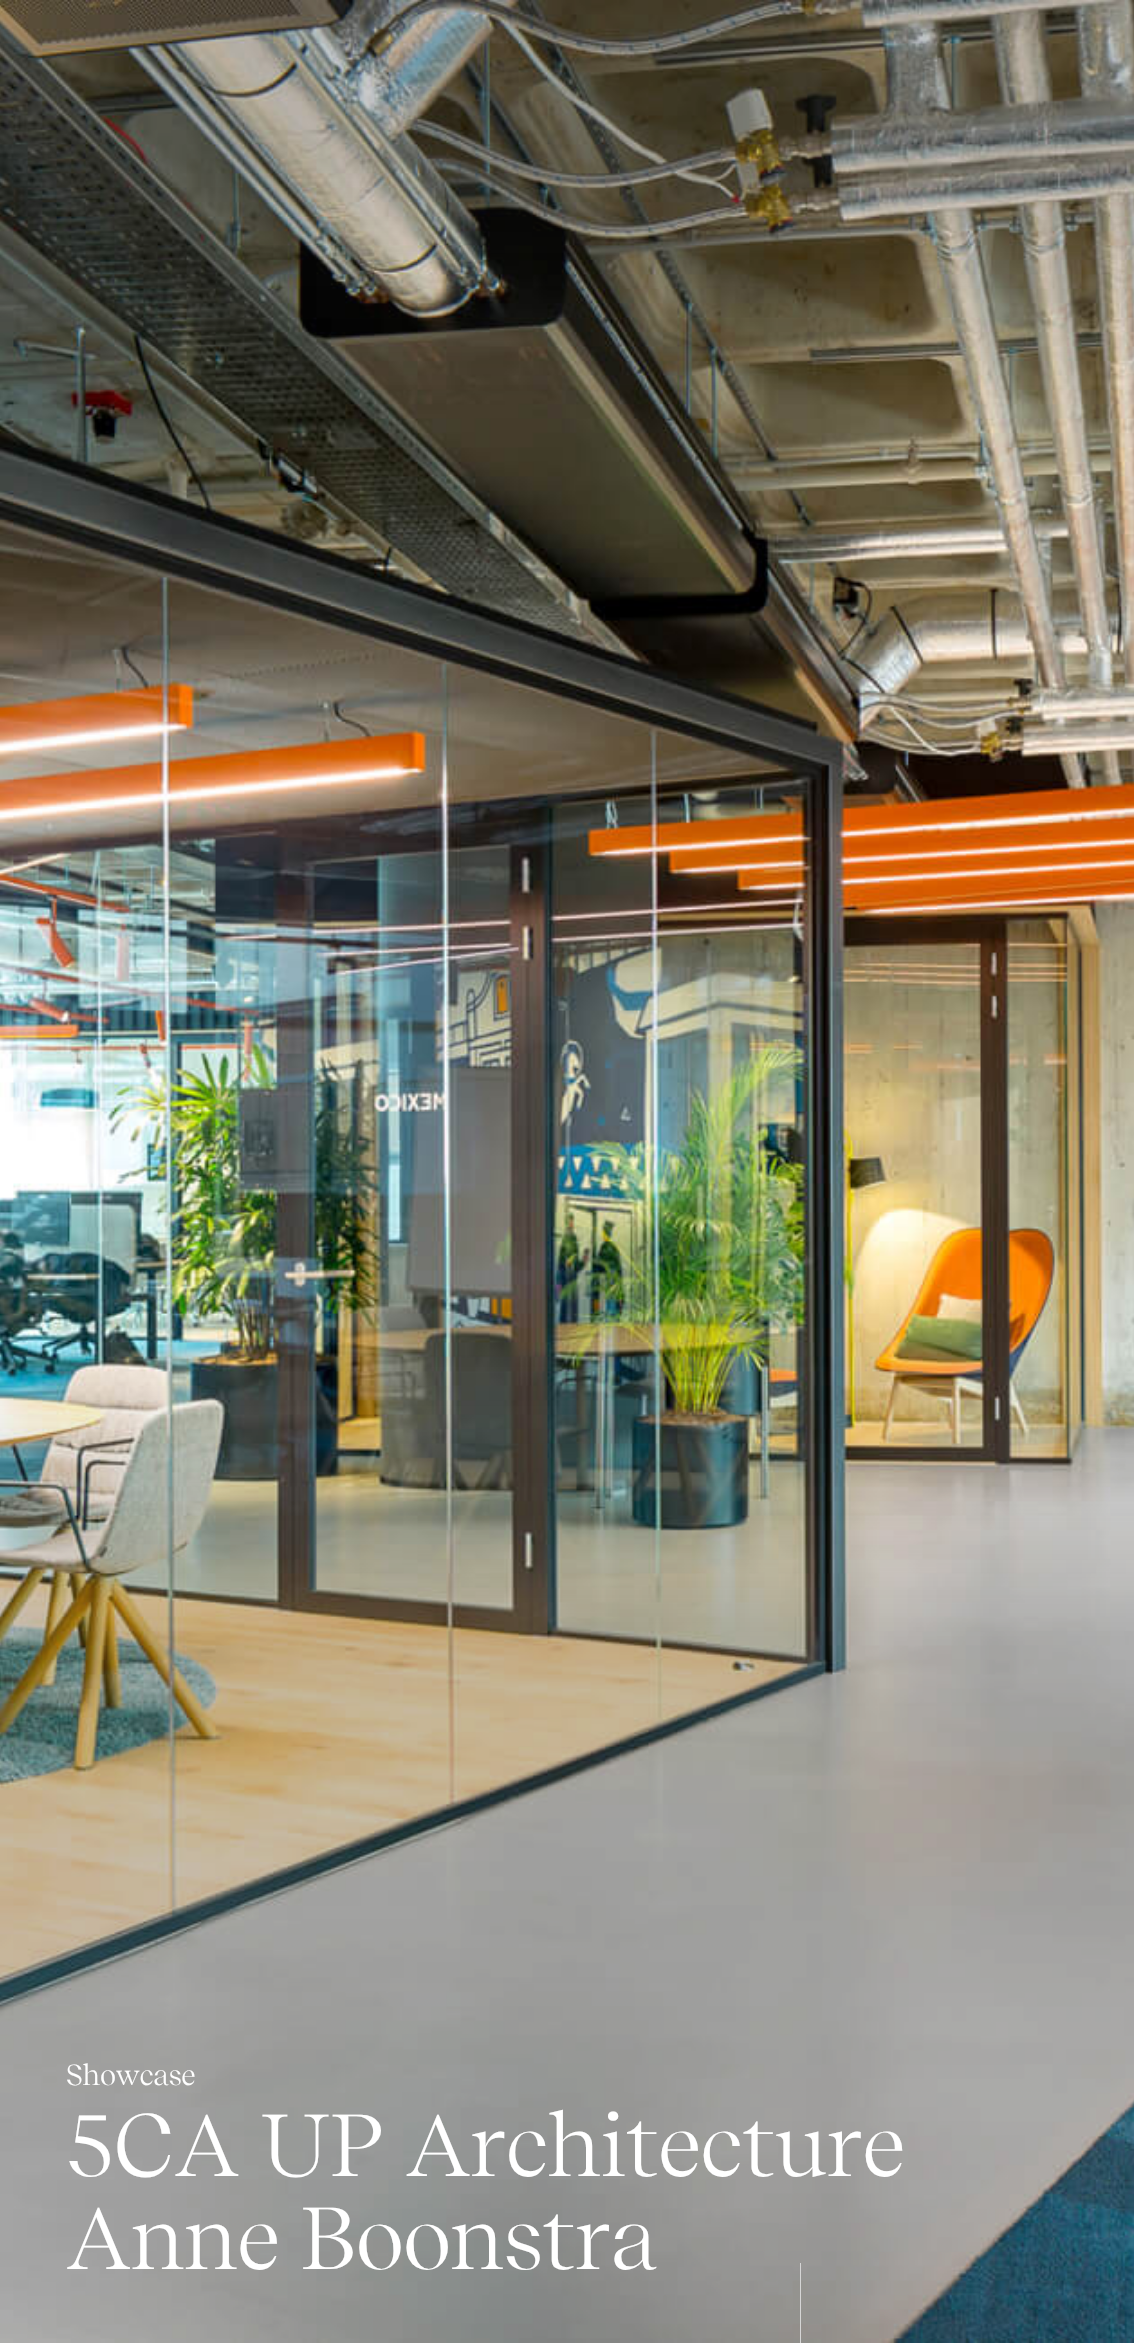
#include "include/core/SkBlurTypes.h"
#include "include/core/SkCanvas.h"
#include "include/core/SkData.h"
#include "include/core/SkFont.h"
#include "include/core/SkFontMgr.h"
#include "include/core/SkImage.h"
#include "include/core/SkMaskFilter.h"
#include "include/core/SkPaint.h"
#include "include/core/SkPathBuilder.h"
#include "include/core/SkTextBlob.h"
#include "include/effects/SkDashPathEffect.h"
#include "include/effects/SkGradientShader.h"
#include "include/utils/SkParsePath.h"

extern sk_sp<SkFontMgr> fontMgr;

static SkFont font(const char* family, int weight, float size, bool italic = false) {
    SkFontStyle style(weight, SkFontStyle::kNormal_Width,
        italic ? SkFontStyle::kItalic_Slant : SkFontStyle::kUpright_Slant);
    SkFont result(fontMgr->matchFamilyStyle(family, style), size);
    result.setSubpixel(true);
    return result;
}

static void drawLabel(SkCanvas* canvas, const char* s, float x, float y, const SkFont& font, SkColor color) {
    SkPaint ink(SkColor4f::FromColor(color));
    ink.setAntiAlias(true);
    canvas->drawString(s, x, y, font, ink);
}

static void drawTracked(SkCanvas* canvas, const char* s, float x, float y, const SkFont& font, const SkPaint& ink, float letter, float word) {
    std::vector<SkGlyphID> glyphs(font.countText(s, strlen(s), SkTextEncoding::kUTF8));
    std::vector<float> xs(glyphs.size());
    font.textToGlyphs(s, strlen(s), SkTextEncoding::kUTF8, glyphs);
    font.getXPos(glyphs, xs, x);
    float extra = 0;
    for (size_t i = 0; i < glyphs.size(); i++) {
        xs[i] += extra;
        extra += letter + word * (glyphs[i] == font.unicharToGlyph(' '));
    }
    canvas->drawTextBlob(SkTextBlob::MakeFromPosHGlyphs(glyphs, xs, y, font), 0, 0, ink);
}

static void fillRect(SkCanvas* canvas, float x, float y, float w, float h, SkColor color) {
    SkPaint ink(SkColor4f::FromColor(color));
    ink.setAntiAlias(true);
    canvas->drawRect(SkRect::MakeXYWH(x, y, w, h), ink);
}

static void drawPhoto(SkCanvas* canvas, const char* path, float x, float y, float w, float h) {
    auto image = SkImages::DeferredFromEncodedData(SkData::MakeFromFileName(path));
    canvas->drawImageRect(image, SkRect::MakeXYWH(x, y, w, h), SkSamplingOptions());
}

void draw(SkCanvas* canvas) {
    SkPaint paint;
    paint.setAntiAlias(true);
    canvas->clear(0xFFFFFFFF);
    drawPhoto(canvas, "assets/img1.png", 0, 0, 1134, 2343);
    SkFont font1 = font("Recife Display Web", 400, 28.75f);
    drawLabel(canvas, "Showcase", 66, 2085, font1, 0xFFFFFFFF);
    SkFont font2 = font("Recife Display Web", 400, 87.5f);
    paint.setColor(0xFFFFFFFF);
    drawTracked(canvas, "5CA UP Architecture", 66, 2176, font2, paint, -0.2f, 0);
    drawTracked(canvas, "Anne Boonstra", 66, 2269, font2, paint, -0.2f, 0);
    fillRect(canvas, 800, 2263, 1, 80, 0xFFD5D5D5);
}
